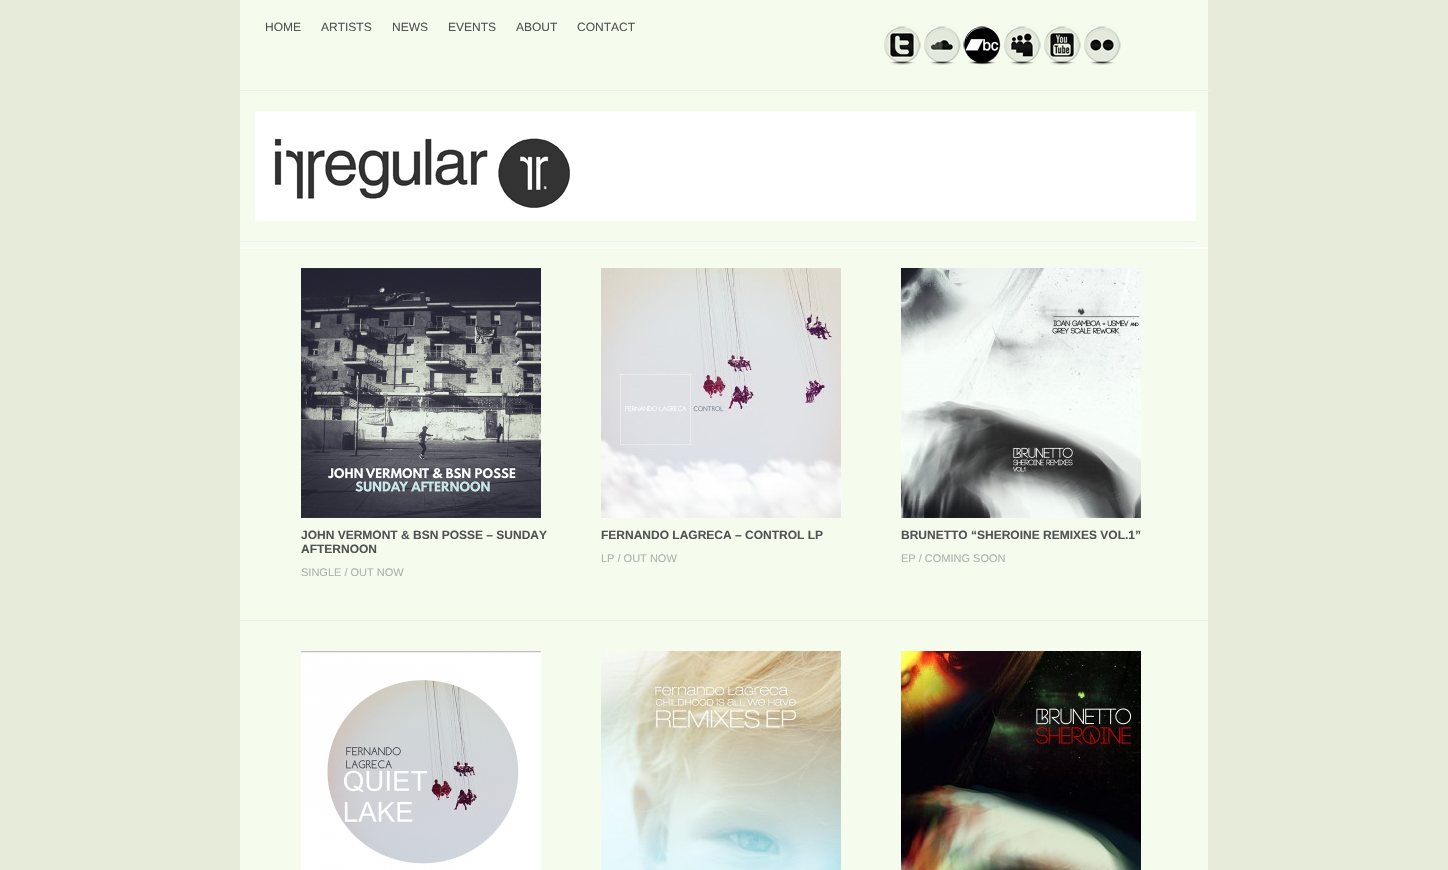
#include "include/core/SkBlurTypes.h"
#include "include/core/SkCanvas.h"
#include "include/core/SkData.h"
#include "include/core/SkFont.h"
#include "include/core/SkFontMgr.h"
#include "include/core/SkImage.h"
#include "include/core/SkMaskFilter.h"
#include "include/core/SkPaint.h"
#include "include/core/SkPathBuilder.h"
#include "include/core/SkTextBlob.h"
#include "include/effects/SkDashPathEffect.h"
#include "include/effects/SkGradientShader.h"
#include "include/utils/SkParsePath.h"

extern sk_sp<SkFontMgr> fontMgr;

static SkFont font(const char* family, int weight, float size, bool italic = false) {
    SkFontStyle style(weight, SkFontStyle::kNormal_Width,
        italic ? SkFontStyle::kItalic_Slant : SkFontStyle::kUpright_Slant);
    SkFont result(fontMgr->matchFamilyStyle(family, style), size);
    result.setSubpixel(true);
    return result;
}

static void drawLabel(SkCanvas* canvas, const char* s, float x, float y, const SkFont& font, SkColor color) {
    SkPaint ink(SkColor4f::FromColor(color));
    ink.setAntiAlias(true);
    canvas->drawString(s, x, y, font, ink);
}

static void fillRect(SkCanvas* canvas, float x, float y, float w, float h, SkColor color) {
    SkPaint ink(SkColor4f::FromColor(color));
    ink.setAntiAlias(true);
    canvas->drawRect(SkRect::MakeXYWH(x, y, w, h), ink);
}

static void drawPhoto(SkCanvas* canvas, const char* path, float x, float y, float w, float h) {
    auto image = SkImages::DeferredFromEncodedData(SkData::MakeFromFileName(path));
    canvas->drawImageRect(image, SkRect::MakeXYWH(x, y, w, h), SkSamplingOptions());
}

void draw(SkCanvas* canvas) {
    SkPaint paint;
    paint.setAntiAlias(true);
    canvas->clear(0xFFE6EAD9);
    fillRect(canvas, 240, 0, 968, 870, 0xFFF5FCEE);
    fillRect(canvas, 240, 90, 971, 1, 0xFFEEEEEE);
    SkFont font1 = font("Liberation Sans", 400, 12);
    drawLabel(canvas, "HOME", 265, 31, font1, 0xFF525252);
    drawLabel(canvas, "ARTISTS", 321, 31, font1, 0xFF525252);
    drawLabel(canvas, "NEWS", 392, 31, font1, 0xFF525252);
    drawLabel(canvas, "EVENTS", 448, 31, font1, 0xFF525252);
    drawLabel(canvas, "ABOUT", 516, 31, font1, 0xFF525252);
    drawLabel(canvas, "CONTACT", 577, 31, font1, 0xFF525252);
    drawPhoto(canvas, "assets/img1.png", 884, 26, 37, 39);
    drawPhoto(canvas, "assets/img2.png", 924, 26, 37, 39);
    drawPhoto(canvas, "assets/img3.png", 963, 26, 38, 39);
    drawPhoto(canvas, "assets/img4.png", 1004, 26, 37, 39);
    drawPhoto(canvas, "assets/img5.png", 1044, 26, 37, 39);
    drawPhoto(canvas, "assets/img6.png", 1084, 26, 37, 39);
    fillRect(canvas, 240, 241, 956, 1, 0xFFEEEEEE);
    drawPhoto(canvas, "assets/img7.png", 255, 111, 941, 110);
    fillRect(canvas, 240, 247, 968, 2, 0xFFFFFFFF);
    drawPhoto(canvas, "assets/img8.png", 301, 268, 240, 250);
    SkFont font2 = font("Liberation Sans", 700, 12);
    drawLabel(canvas, "JOHN VERMONT & BSN POSSE – SUNDAY", 301, 539, font2, 0xFF525252);
    drawLabel(canvas, "AFTERNOON", 301, 553, font2, 0xFF525252);
    SkFont font3 = font("Liberation Sans", 400, 11);
    drawLabel(canvas, "SINGLE / OUT NOW", 301, 576, font3, 0xFFAFAFAF);
    drawPhoto(canvas, "assets/img9.png", 601, 268, 240, 250);
    drawLabel(canvas, "FERNANDO LAGRECA – CONTROL LP", 601, 539, font2, 0xFF525252);
    drawLabel(canvas, "LP / OUT NOW", 601, 562, font3, 0xFFAFAFAF);
    drawPhoto(canvas, "assets/img10.png", 901, 268, 240, 250);
    drawLabel(canvas, "BRUNETTO “SHEROINE REMIXES VOL.1”", 901, 539, font2, 0xFF525252);
    drawLabel(canvas, "EP / COMING SOON", 901, 562, font3, 0xFFAFAFAF);
    fillRect(canvas, 240, 620, 968, 1, 0xFFEEEEEE);
    drawPhoto(canvas, "assets/img11.png", 301, 651, 240, 219);
    drawPhoto(canvas, "assets/img12.png", 601, 651, 240, 219);
    drawPhoto(canvas, "assets/img13.png", 901, 651, 240, 219);
}
